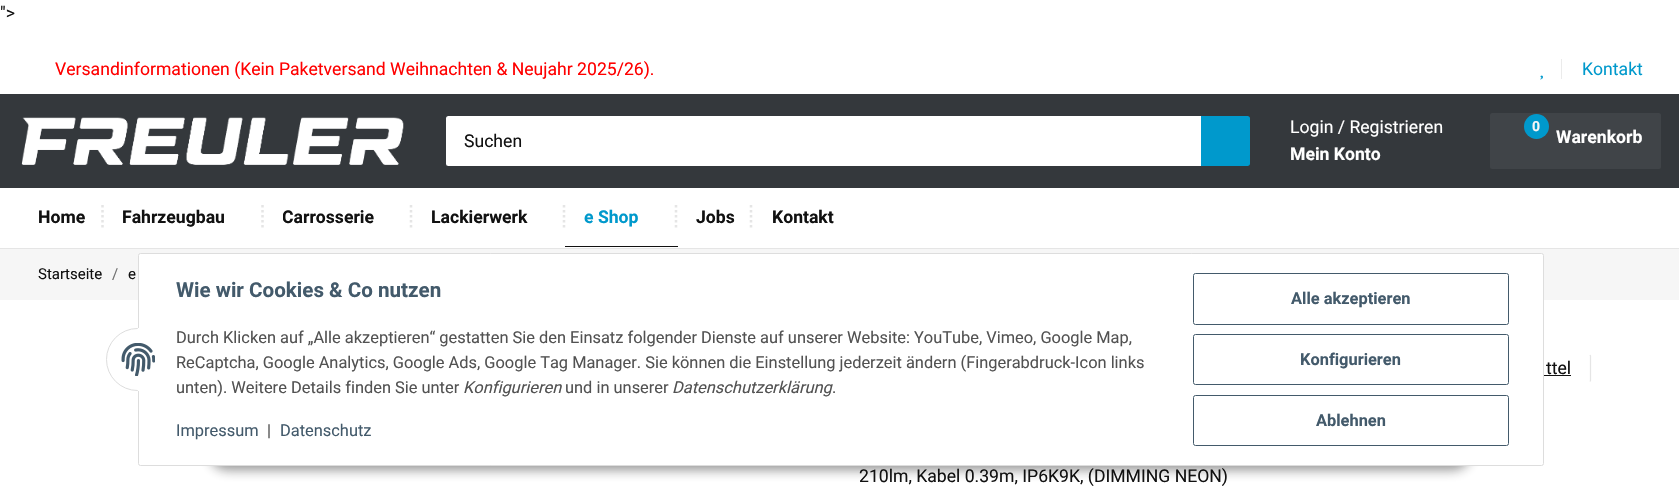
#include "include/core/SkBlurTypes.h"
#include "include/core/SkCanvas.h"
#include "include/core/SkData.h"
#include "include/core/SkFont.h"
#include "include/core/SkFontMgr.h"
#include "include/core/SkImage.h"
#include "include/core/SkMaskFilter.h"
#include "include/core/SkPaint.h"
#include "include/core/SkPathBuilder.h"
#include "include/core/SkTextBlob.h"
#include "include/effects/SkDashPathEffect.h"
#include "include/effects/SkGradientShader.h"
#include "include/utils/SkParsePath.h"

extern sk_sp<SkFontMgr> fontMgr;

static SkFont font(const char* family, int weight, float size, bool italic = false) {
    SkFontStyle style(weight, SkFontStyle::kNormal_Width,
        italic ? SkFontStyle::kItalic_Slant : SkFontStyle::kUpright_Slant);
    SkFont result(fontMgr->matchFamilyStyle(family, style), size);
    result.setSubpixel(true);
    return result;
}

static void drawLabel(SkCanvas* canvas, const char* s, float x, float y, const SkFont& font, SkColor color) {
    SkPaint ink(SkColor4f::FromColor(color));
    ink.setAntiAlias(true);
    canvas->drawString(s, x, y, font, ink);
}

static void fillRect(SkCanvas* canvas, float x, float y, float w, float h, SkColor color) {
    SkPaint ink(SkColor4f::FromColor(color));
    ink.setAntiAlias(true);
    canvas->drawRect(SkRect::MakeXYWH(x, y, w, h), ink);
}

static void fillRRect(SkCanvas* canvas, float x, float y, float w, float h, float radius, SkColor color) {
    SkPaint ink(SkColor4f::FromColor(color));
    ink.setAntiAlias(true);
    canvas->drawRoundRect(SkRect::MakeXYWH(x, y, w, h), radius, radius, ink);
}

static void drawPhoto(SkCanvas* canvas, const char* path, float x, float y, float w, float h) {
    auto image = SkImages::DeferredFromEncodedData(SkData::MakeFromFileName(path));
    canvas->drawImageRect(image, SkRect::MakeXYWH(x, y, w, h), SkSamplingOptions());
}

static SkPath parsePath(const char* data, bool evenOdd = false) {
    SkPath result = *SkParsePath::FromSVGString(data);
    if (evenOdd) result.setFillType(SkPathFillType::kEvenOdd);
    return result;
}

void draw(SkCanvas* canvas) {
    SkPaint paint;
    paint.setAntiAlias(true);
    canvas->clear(0xFFFFFFFF);
    SkFont font1 = font("Roboto", 400, 17.6f);
    drawLabel(canvas, "\">", 0, 19, font1, 0xFF111111);
    drawLabel(canvas, "Versandinformationen (Kein Paketversand Weihnachten & Neujahr 2025/26).", 55, 75, font1, 0xFFFF0000);
    drawPhoto(canvas, "assets/img1.png", 1540, 75, 3, 5);
    fillRect(canvas, 1561, 59, 1, 20, 0xFFEBEBEB);
    drawLabel(canvas, "Kontakt", 1582, 75, font1, 0xFF0099CC);
    fillRect(canvas, 0, 94, 1679, 94, 0xFF34383C);
    drawPhoto(canvas, "assets/img2.png", 21, 117, 383, 48);
    fillRRect(canvas, 446, 116, 757, 50, 2.5f, 0xFFFFFFFF);
    drawLabel(canvas, "Suchen", 464, 147, font1, 0xFF111111);
    paint.setColor(0xFF0099CC);
    canvas->drawPath(parsePath("M1201 116H1247.5C1249 116 1250 117 1250 118.5V163.5C1250 165 1249 166 1247.5 166H1201Z"), paint);
    drawLabel(canvas, "Login / Registrieren", 1290, 133, font1, 0xFFFFFFFF);
    SkFont font2 = font("Roboto", 700, 17.6f);
    drawLabel(canvas, "Mein Konto", 1290, 160, font2, 0xFFFFFFFF);
    fillRRect(canvas, 1490, 113, 171, 56, 2.5f, 0xFF404448);
    canvas->drawCircle(1536.5f, 126.5f, 12.5f, paint);
    SkFont font3 = font("Roboto", 700, 14);
    drawLabel(canvas, "0", 1532, 131, font3, 0xFFF6F6F6);
    drawLabel(canvas, "Warenkorb", 1556, 143, font2, 0xFFFFFFFF);
    fillRect(canvas, 0, 248, 1679, 1, 0xFFE5E5E5);
    drawLabel(canvas, "Home", 38, 223, font2, 0xFF111111);
    paint.setStroke(true);
    paint.setStrokeWidth(2.5f);
    paint.setColor(0xFFE5E5E5);
    paint.setPathEffect(SkDashPathEffect::Make({{2.5f, 2.5f}}, 0));
    canvas->drawPath(parsePath("M102.5 205V230"), paint);
    paint.setPathEffect(nullptr);
    drawLabel(canvas, "Fahrzeugbau", 122, 223, font2, 0xFF111111);
    paint.setPathEffect(SkDashPathEffect::Make({{2.5f, 2.5f}}, 0));
    canvas->drawPath(parsePath("M262.5 205V230"), paint);
    paint.setPathEffect(nullptr);
    canvas->save();
    canvas->clipRect(SkRect::MakeXYWH(283, 204, 91, 26));
    drawLabel(canvas, "Carrosserie", 282, 223, font2, 0xFF111111);
    canvas->restore();
    paint.setPathEffect(SkDashPathEffect::Make({{2.5f, 2.5f}}, 0));
    canvas->drawPath(parsePath("M411 205V230"), paint);
    paint.setPathEffect(nullptr);
    drawLabel(canvas, "Lackierwerk", 431, 223, font2, 0xFF111111);
    paint.setPathEffect(SkDashPathEffect::Make({{2.5f, 2.5f}}, 0));
    canvas->drawPath(parsePath("M564 205V230"), paint);
    paint.setPathEffect(nullptr);
    fillRect(canvas, 565, 246, 113, 1, 0xFF111111);
    drawLabel(canvas, "e Shop", 584, 223, font2, 0xFF0099CC);
    paint.setPathEffect(SkDashPathEffect::Make({{2.5f, 2.5f}}, 0));
    canvas->drawPath(parsePath("M676 205V230"), paint);
    paint.setPathEffect(nullptr);
    drawLabel(canvas, "Jobs", 696, 223, font2, 0xFF111111);
    paint.setPathEffect(SkDashPathEffect::Make({{2.5f, 2.5f}}, 0));
    canvas->drawPath(parsePath("M751 205V230"), paint);
    paint.setPathEffect(nullptr);
    drawLabel(canvas, "Kontakt", 772, 223, font2, 0xFF111111);
    fillRect(canvas, 0, 249, 1679, 51, 0xFFF6F6F6);
    SkFont font4 = font("Roboto", 400, 15);
    drawLabel(canvas, "Startseite", 38, 279, font4, 0xFF111111);
    drawLabel(canvas, "/", 112, 279, font4, 0xFF707070);
    drawLabel(canvas, "e", 128, 279, font4, 0xFF111111);
    paint.setStrokeWidth(1.2f);
    canvas->drawPath(parsePath("M1590 355L1590.5 356V380.5L1590 381.5"), paint);
    drawLabel(canvas, "ttel", 1546, 374, font1, 0xFF111111);
    fillRect(canvas, 1544, 375, 27, 1, 0xFF111111);
    drawLabel(canvas, "210lm, Kabel 0.39m, IP6K9K, (DIMMING NEON)", 859, 482, font1, 0xFF111111);
    paint.setStroke(false);
    paint.setColor(0x73111111);
    paint.setMaskFilter(SkMaskFilter::MakeBlur(kNormal_SkBlurStyle, 6));
    canvas->drawRoundRect(SkRect::MakeXYWH(209, 433, 1262, 37), 18.5f, 18.5f, paint);
    paint.setMaskFilter(nullptr);
    paint.setColor(0xFFFFFFFF);
    canvas->drawRoundRect(SkRect::MakeXYWH(138.5f, 253.5f, 1405, 212), 2, 2, paint);
    paint.setStroke(true);
    paint.setStrokeWidth(1);
    paint.setColor(0xFFDDDDDD);
    canvas->drawRoundRect(SkRect::MakeXYWH(138.5f, 253.5f, 1405, 212), 2, 2, paint);
    paint.setStroke(false);
    paint.setColor(0xFFFFFFFF);
    canvas->drawRoundRect(SkRect::MakeXYWH(106.5f, 328.5f, 63, 62), 31, 31, paint);
    paint.setStroke(true);
    paint.setColor(0xFFDDDDDD);
    canvas->drawRoundRect(SkRect::MakeXYWH(106.5f, 328.5f, 63, 62), 31, 31, paint);
    fillRect(canvas, 138, 328, 32, 63, 0xFFFFFFFF);
    drawPhoto(canvas, "assets/img3.png", 121, 343, 34, 33);
    SkFont font5 = font("Roboto", 700, 20.6f);
    drawLabel(canvas, "Wie wir Cookies & Co nutzen", 176, 297, font5, 0xFF435A6B);
    SkFont font6 = font("Roboto", 400, 16.4f);
    drawLabel(canvas, "Durch Klicken auf „Alle akzeptieren“ gestatten Sie den Einsatz folgender Dienste auf unserer Website: YouTube, Vimeo, Google Map,", 176, 343, font6, 0xFF525252);
    drawLabel(canvas, "ReCaptcha, Google Analytics, Google Ads, Google Tag Manager. Sie können die Einstellung jederzeit ändern (Fingerabdruck-Icon links", 176, 368, font6, 0xFF525252);
    drawLabel(canvas, "unten). Weitere Details finden Sie unter", 176, 393, font6, 0xFF525252);
    SkFont font7 = font("Roboto", 400, 16.4f, true);
    drawLabel(canvas, "Konfigurieren", 463, 393, font7, 0xFF525252);
    drawLabel(canvas, "und in unserer", 565, 393, font6, 0xFF525252);
    drawLabel(canvas, "Datenschutzerklärung", 672, 393, font7, 0xFF525252);
    drawLabel(canvas, ".", 832, 393, font6, 0xFF525252);
    drawLabel(canvas, "Impressum", 176, 436, font6, 0xFF435A6B);
    drawLabel(canvas, "|", 267, 436, font6, 0xFF525252);
    drawLabel(canvas, "Datenschutz", 280, 436, font6, 0xFF435A6B);
    paint.setColor(0xFF435A6B);
    canvas->drawRoundRect(SkRect::MakeXYWH(1193.5f, 273.5f, 315, 51), 2, 2, paint);
    SkFont font8 = font("Roboto", 700, 16.4f);
    drawLabel(canvas, "Alle akzeptieren", 1291, 304, font8, 0xFF435A6B);
    canvas->drawRoundRect(SkRect::MakeXYWH(1193.5f, 334.5f, 315, 50), 2, 2, paint);
    drawLabel(canvas, "Konfigurieren", 1300, 365, font8, 0xFF435A6B);
    canvas->drawRoundRect(SkRect::MakeXYWH(1193.5f, 395.5f, 315, 50), 2, 2, paint);
    drawLabel(canvas, "Ablehnen", 1316, 426, font8, 0xFF435A6B);
}
